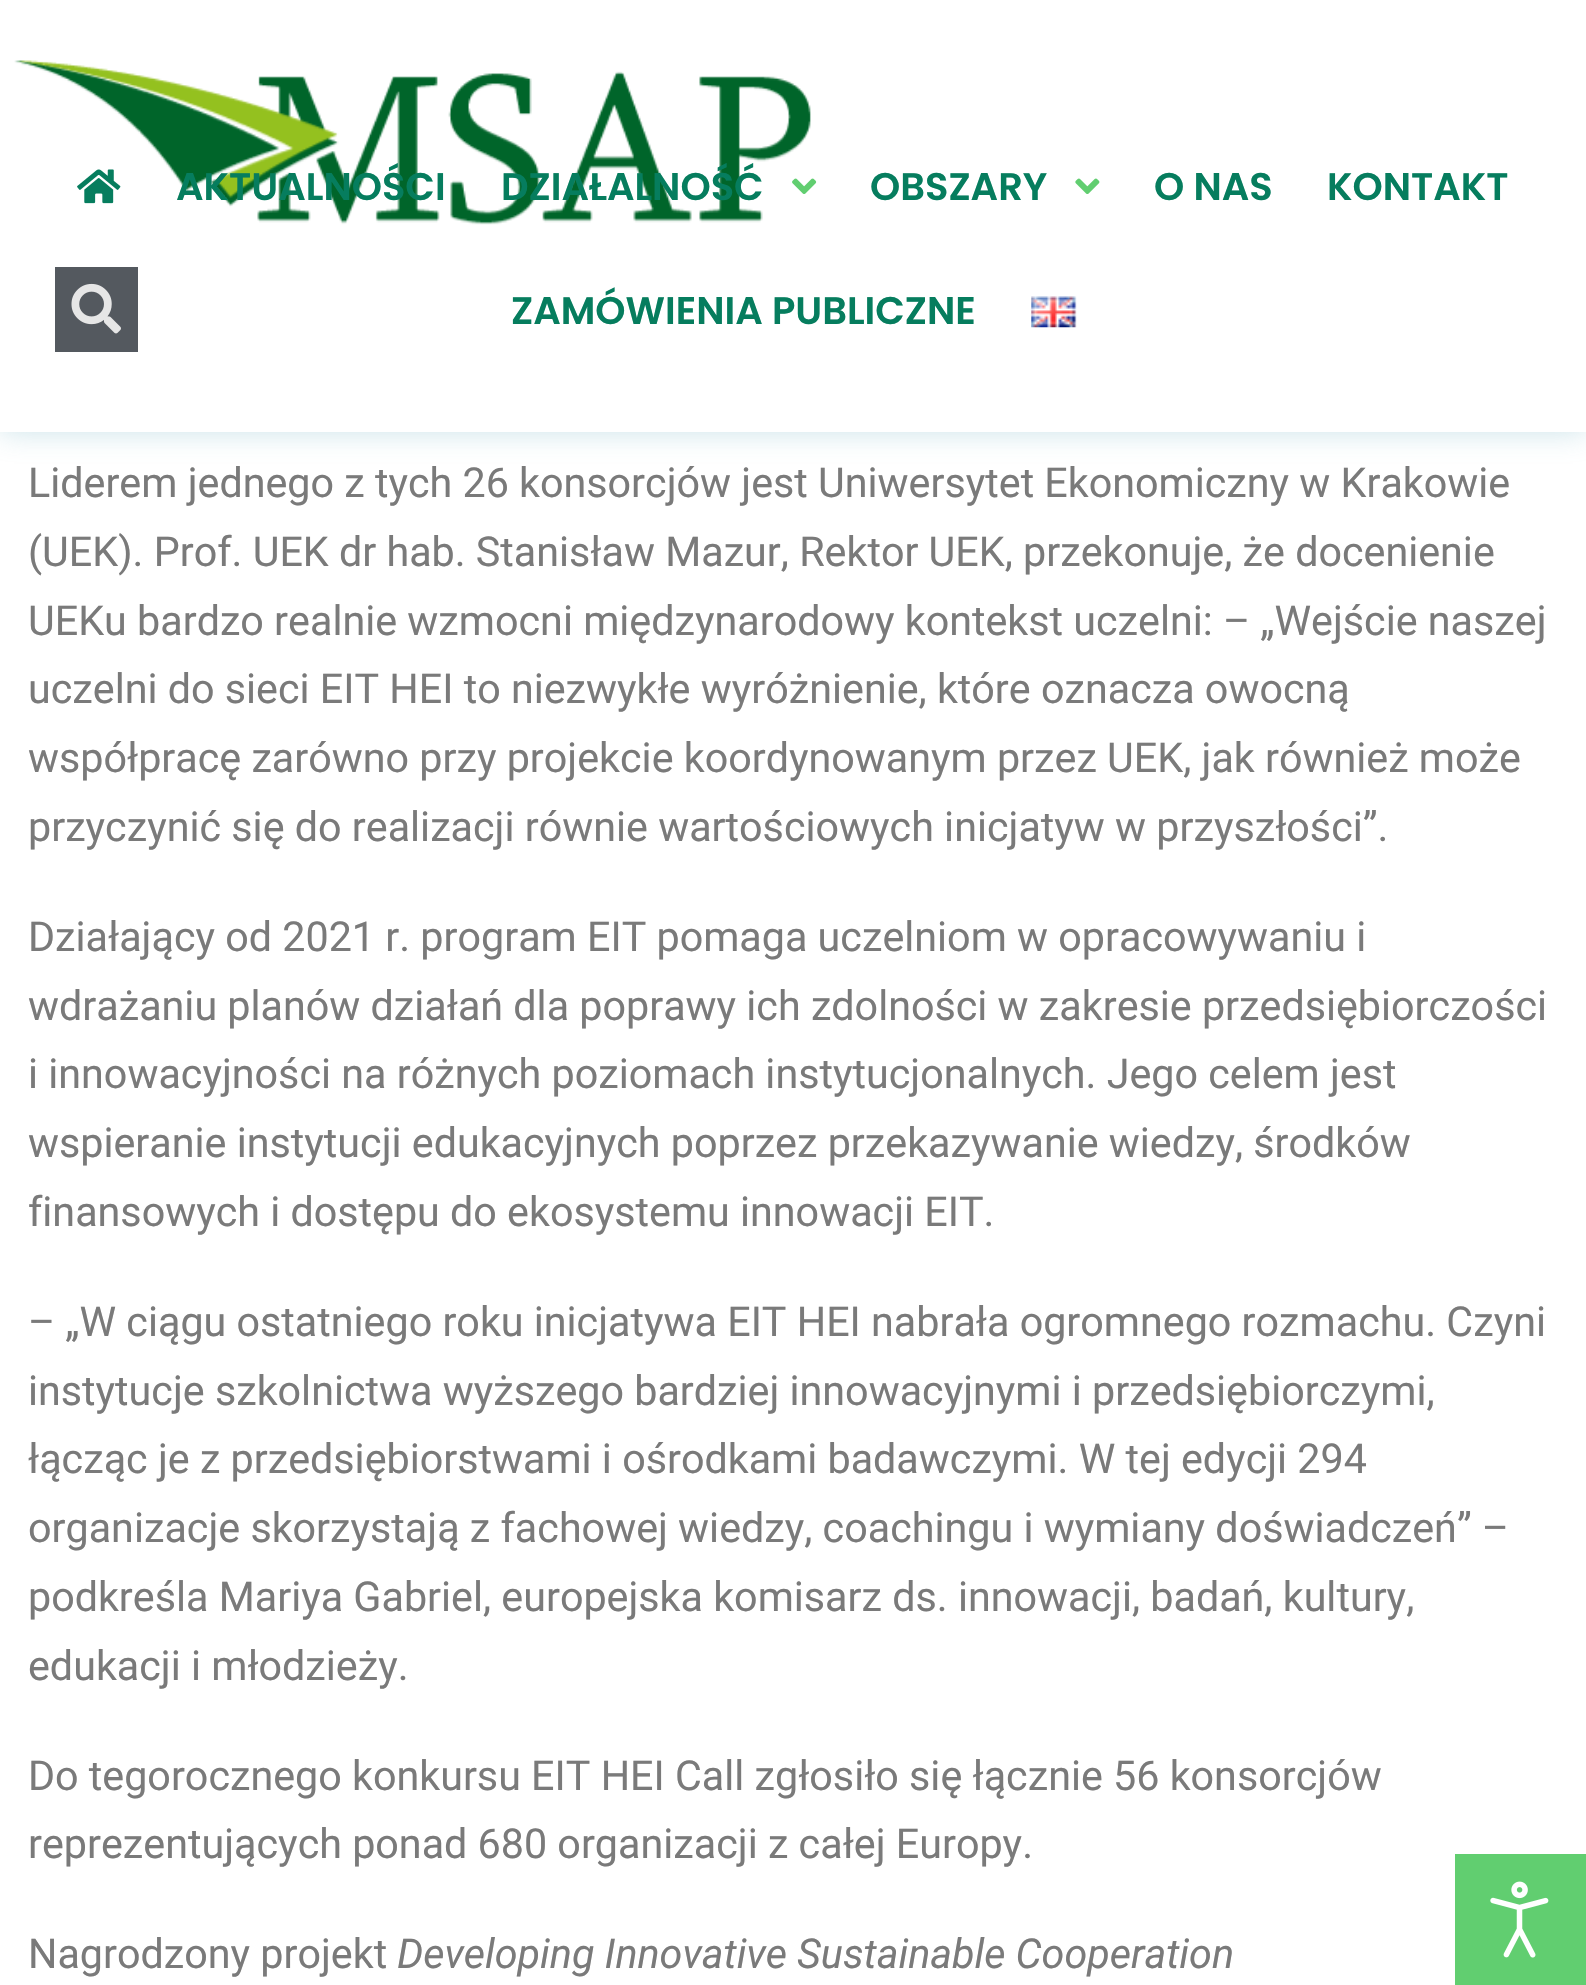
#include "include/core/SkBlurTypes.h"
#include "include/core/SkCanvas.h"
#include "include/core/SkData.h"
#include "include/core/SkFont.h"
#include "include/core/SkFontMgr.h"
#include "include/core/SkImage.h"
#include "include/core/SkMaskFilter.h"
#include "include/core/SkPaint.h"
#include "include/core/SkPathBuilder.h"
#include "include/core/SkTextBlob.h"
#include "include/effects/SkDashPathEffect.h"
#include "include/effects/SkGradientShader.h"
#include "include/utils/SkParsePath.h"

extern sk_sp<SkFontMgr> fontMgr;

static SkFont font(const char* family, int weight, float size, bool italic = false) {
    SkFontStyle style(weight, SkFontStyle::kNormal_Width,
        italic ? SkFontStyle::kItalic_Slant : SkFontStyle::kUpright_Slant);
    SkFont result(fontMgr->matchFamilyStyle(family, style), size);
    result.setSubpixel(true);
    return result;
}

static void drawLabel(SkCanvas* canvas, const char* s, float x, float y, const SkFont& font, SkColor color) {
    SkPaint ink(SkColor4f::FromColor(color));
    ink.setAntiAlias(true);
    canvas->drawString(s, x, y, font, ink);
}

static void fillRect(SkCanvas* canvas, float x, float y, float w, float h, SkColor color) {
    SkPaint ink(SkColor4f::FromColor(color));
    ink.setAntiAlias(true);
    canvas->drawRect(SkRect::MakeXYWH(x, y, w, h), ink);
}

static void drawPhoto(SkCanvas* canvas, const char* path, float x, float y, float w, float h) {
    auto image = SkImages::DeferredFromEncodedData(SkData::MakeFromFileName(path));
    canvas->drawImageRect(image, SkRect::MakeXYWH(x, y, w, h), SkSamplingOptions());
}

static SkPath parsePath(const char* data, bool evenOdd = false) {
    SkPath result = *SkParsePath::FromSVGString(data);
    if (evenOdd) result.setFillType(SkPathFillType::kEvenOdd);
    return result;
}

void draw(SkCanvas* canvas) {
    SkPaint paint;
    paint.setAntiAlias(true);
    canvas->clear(0xFFFFFFFF);
    canvas->save();
    canvas->clipPath(parsePath("M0 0H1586V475H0ZM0 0H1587V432H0Z", true), true);
    paint.setColor(0x6175B6C5);
    paint.setMaskFilter(SkMaskFilter::MakeBlur(kNormal_SkBlurStyle, 14));
    canvas->drawRect(SkRect::MakeXYWH(0, 0, 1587, 432), paint);
    paint.setMaskFilter(nullptr);
    canvas->restore();
    fillRect(canvas, 0, 431, 1586, 1, 0xEBFFFFFF);
    drawPhoto(canvas, "assets/img1.png", 14, 60, 797, 165);
    fillRect(canvas, 55, 267, 83, 85, 0xFF54595F);
    drawPhoto(canvas, "assets/img2.png", 71, 283, 50, 51);
    drawPhoto(canvas, "assets/img3.png", 77, 169, 44, 35);
    SkFont font1 = font("Poppins", 600, 38.5f);
    drawLabel(canvas, "AKTUALNOŚCI", 176, 200, font1, 0xFF067D5E);
    drawLabel(canvas, "DZIAŁALNOŚĆ", 501, 200, font1, 0xFF067D5E);
    drawPhoto(canvas, "assets/img4.png", 792, 178, 25, 16);
    drawLabel(canvas, "OBSZARY", 870, 200, font1, 0xFF067D5E);
    drawPhoto(canvas, "assets/img5.png", 1075, 178, 25, 16);
    drawLabel(canvas, "O NAS", 1154, 200, font1, 0xFF067D5E);
    drawLabel(canvas, "KONTAKT", 1327, 200, font1, 0xFF067D5E);
    drawLabel(canvas, "ZAMÓWIENIA PUBLICZNE", 511, 324, font1, 0xFF067D5E);
    drawPhoto(canvas, "assets/img6.png", 1031, 296, 46, 32);
    SkFont font2 = font("Roboto", 400, 41.25f);
    drawLabel(canvas, "Liderem jednego z tych 26 konsorcjów jest Uniwersytet Ekonomiczny w Krakowie", 28, 497, font2, 0xFF7A7A7A);
    drawLabel(canvas, "(UEK). Prof. UEK dr hab. Stanisław Mazur, Rektor UEK, przekonuje, że docenienie", 28, 566, font2, 0xFF7A7A7A);
    drawLabel(canvas, "UEKu bardzo realnie wzmocni międzynarodowy kontekst uczelni: – „Wejście naszej", 28, 635, font2, 0xFF7A7A7A);
    drawLabel(canvas, "uczelni do sieci EIT HEI to niezwykłe wyróżnienie, które oznacza owocną", 28, 703, font2, 0xFF7A7A7A);
    drawLabel(canvas, "współpracę zarówno przy projekcie koordynowanym przez UEK, jak również może", 28, 772, font2, 0xFF7A7A7A);
    drawLabel(canvas, "przyczynić się do realizacji równie wartościowych inicjatyw w przyszłości”.", 28, 841, font2, 0xFF7A7A7A);
    drawLabel(canvas, "Działający od 2021 r. program EIT pomaga uczelniom w opracowywaniu i", 28, 951, font2, 0xFF7A7A7A);
    drawLabel(canvas, "wdrażaniu planów działań dla poprawy ich zdolności w zakresie przedsiębiorczości", 28, 1020, font2, 0xFF7A7A7A);
    drawLabel(canvas, "i innowacyjności na różnych poziomach instytucjonalnych. Jego celem jest", 28, 1088, font2, 0xFF7A7A7A);
    drawLabel(canvas, "wspieranie instytucji edukacyjnych poprzez przekazywanie wiedzy, środków", 28, 1157, font2, 0xFF7A7A7A);
    drawLabel(canvas, "finansowych i dostępu do ekosystemu innowacji EIT.", 28, 1226, font2, 0xFF7A7A7A);
    drawLabel(canvas, "– „W ciągu ostatniego roku inicjatywa EIT HEI nabrała ogromnego rozmachu. Czyni", 28, 1336, font2, 0xFF7A7A7A);
    drawLabel(canvas, "instytucje szkolnictwa wyższego bardziej innowacyjnymi i przedsiębiorczymi,", 28, 1405, font2, 0xFF7A7A7A);
    drawLabel(canvas, "łącząc je z przedsiębiorstwami i ośrodkami badawczymi. W tej edycji 294", 28, 1473, font2, 0xFF7A7A7A);
    drawLabel(canvas, "organizacje skorzystają z fachowej wiedzy, coachingu i wymiany doświadczeń” –", 28, 1542, font2, 0xFF7A7A7A);
    drawLabel(canvas, "podkreśla Mariya Gabriel, europejska komisarz ds. innowacji, badań, kultury,", 28, 1611, font2, 0xFF7A7A7A);
    drawLabel(canvas, "edukacji i młodzieży.", 28, 1680, font2, 0xFF7A7A7A);
    drawLabel(canvas, "Do tegorocznego konkursu EIT HEI Call zgłosiło się łącznie 56 konsorcjów", 28, 1790, font2, 0xFF7A7A7A);
    drawLabel(canvas, "reprezentujących ponad 680 organizacji z całej Europy.", 28, 1858, font2, 0xFF7A7A7A);
    drawLabel(canvas, "Nagrodzony projekt", 28, 1968, font2, 0xFF7A7A7A);
    SkFont font3 = font("Roboto", 400, 41.25f, true);
    drawLabel(canvas, "Developing Innovative Sustainable Cooperation", 397, 1968, font3, 0xFF7A7A7A);
    fillRect(canvas, 1455, 1854, 131, 131, 0xFF61CE70);
    drawPhoto(canvas, "assets/img7.png", 1490, 1881, 59, 77);
}
